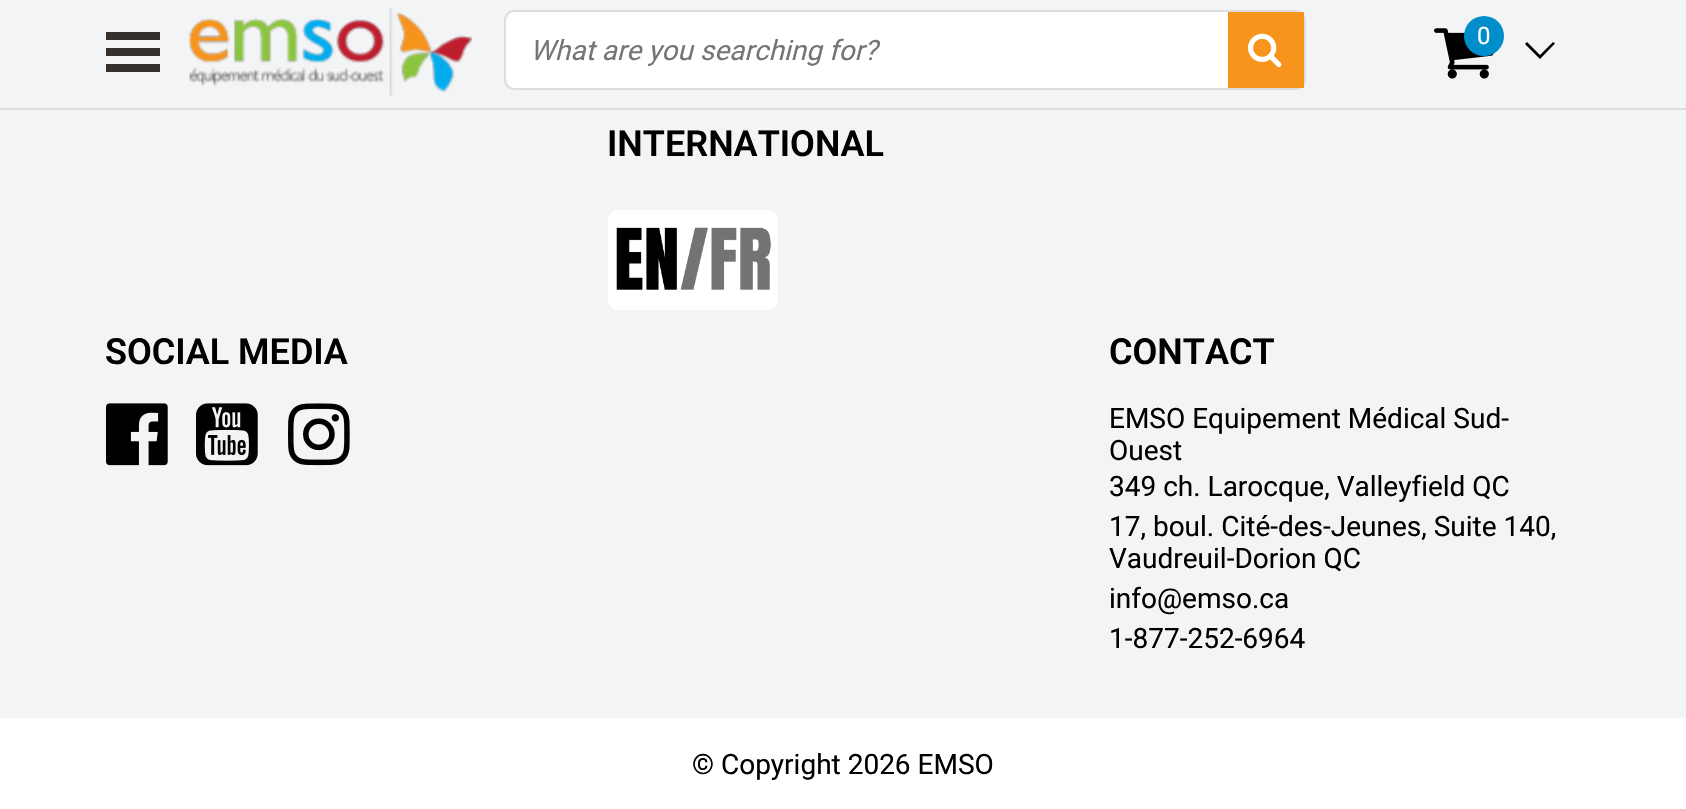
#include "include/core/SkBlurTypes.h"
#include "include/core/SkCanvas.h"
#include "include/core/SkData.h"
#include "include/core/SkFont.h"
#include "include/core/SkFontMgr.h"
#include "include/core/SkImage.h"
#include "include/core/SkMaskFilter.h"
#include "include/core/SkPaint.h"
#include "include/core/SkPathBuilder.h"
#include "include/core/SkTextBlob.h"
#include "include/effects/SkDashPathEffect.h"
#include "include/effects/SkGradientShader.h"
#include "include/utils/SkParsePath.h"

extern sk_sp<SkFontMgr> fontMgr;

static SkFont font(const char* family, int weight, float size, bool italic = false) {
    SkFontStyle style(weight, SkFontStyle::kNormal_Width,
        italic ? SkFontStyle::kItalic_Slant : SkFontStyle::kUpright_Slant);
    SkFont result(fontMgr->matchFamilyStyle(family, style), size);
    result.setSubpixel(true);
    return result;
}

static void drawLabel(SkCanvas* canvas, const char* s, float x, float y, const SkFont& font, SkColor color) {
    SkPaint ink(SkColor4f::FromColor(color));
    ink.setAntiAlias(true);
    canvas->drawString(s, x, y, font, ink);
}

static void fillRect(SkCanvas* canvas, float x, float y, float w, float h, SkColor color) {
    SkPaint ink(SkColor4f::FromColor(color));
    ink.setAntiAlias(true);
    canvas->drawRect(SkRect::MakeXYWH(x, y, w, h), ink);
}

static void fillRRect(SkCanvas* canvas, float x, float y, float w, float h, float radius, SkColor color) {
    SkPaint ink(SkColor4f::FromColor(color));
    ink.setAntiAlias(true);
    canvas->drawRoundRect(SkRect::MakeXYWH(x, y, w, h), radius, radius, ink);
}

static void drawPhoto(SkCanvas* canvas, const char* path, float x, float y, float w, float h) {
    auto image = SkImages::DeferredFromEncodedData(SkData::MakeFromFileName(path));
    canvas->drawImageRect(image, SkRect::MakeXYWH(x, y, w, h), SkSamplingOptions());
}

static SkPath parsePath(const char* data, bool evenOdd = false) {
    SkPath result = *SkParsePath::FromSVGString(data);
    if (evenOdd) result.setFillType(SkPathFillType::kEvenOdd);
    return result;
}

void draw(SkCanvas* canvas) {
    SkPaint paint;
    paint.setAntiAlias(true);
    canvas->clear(0xFFFFFFFF);
    fillRect(canvas, 0, 0, 1686, 108, 0xFFF3F4F6);
    fillRect(canvas, 0, 108, 1686, 2, 0xFFDDDDDD);
    fillRect(canvas, 106, 32, 54, 8, 0xFF34312F);
    fillRect(canvas, 106, 48, 54, 8, 0xFF34312F);
    fillRect(canvas, 106, 64, 54, 8, 0xFF34312F);
    drawPhoto(canvas, "assets/img1.png", 189, 8, 283, 88);
    drawPhoto(canvas, "assets/img2.png", 1434, 28, 60, 51);
    paint.setColor(0xFF008DCB);
    canvas->drawCircle(1484, 36, 20, paint);
    SkFont font1 = font("Roboto", 400, 24);
    drawLabel(canvas, "0", 1477, 44, font1, 0xFFFFFFFF);
    paint.setColor(0xFF000000);
    canvas->drawPath(parsePath("M1538 57L1540 59L1555 43.5L1553 42L1540 55L1527 42L1525 44Z"), paint);
    paint.setStroke(true);
    paint.setStrokeWidth(2);
    paint.setColor(0xFFDDDDDD);
    canvas->drawRoundRect(SkRect::MakeXYWH(505, 11, 800, 78), 9, 9, paint);
    fillRRect(canvas, 506, 12, 798, 76, 10, 0xFFFFFFFF);
    SkFont font2 = font("Roboto", 400, 28, true);
    drawLabel(canvas, "What are you searching for?", 530, 60, font2, 0xFF757575);
    fillRect(canvas, 1228, 12, 76, 76, 0xFFF6941B);
    drawPhoto(canvas, "assets/img3.png", 1248, 33, 34, 35);
    fillRect(canvas, 0, 110, 1686, 608, 0xFFF3F4F6);
    SkFont font3 = font("Roboto", 600, 36);
    drawLabel(canvas, "INTERNATIONAL", 607, 156, font3, 0xFF000000);
    fillRRect(canvas, 608, 210, 170, 100, 10, 0xFFFFFFFF);
    drawPhoto(canvas, "assets/img4.png", 616, 227, 155, 63);
    drawLabel(canvas, "SOCIAL MEDIA", 105, 364, font3, 0xFF000000);
    drawPhoto(canvas, "assets/img5.png", 106, 403, 62, 63);
    drawPhoto(canvas, "assets/img6.png", 196, 403, 62, 63);
    drawPhoto(canvas, "assets/img7.png", 288, 403, 62, 63);
    drawLabel(canvas, "CONTACT", 1109, 364, font3, 0xFF000000);
    SkFont font4 = font("Roboto", 400, 28);
    drawLabel(canvas, "EMSO Equipement Médical Sud-", 1109, 428, font4, 0xFF000000);
    drawLabel(canvas, "Ouest", 1109, 460, font4, 0xFF000000);
    drawLabel(canvas, "349 ch. Larocque, Valleyfield QC", 1109, 496, font4, 0xFF000000);
    drawLabel(canvas, "17, boul. Cité-des-Jeunes, Suite 140,", 1109, 536, font4, 0xFF000000);
    drawLabel(canvas, "Vaudreuil-Dorion QC", 1109, 568, font4, 0xFF000000);
    drawLabel(canvas, "info@emso.ca", 1109, 608, font4, 0xFF000000);
    drawLabel(canvas, "1-877-252-6964", 1109, 648, font4, 0xFF000000);
    drawLabel(canvas, "© Copyright 2026 EMSO", 692, 774, font4, 0xFF000000);
}
